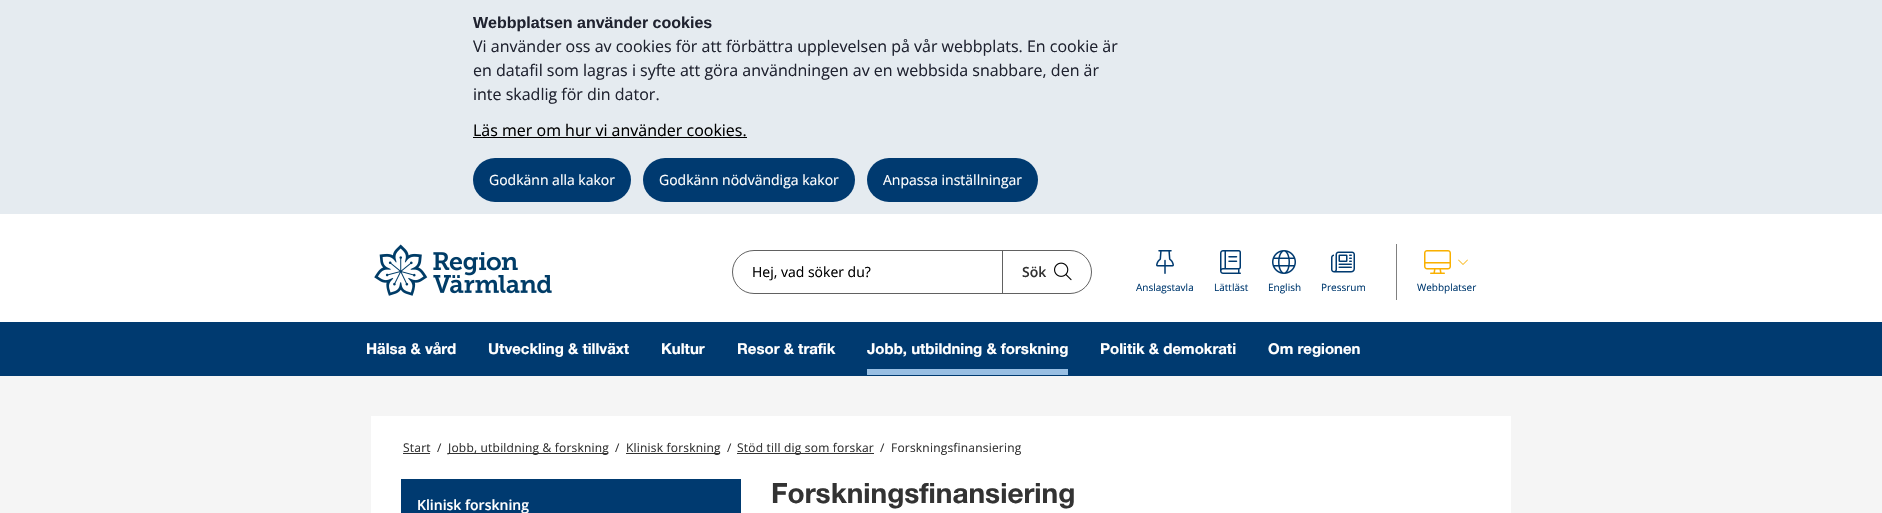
#include "include/core/SkBlurTypes.h"
#include "include/core/SkCanvas.h"
#include "include/core/SkData.h"
#include "include/core/SkFont.h"
#include "include/core/SkFontMgr.h"
#include "include/core/SkImage.h"
#include "include/core/SkMaskFilter.h"
#include "include/core/SkPaint.h"
#include "include/core/SkPathBuilder.h"
#include "include/core/SkTextBlob.h"
#include "include/effects/SkDashPathEffect.h"
#include "include/effects/SkGradientShader.h"
#include "include/utils/SkParsePath.h"

extern sk_sp<SkFontMgr> fontMgr;

static SkFont font(const char* family, int weight, float size, bool italic = false) {
    SkFontStyle style(weight, SkFontStyle::kNormal_Width,
        italic ? SkFontStyle::kItalic_Slant : SkFontStyle::kUpright_Slant);
    SkFont result(fontMgr->matchFamilyStyle(family, style), size);
    result.setSubpixel(true);
    return result;
}

static void drawLabel(SkCanvas* canvas, const char* s, float x, float y, const SkFont& font, SkColor color) {
    SkPaint ink(SkColor4f::FromColor(color));
    ink.setAntiAlias(true);
    canvas->drawString(s, x, y, font, ink);
}

static void drawTracked(SkCanvas* canvas, const char* s, float x, float y, const SkFont& font, const SkPaint& ink, float letter, float word) {
    std::vector<SkGlyphID> glyphs(font.countText(s, strlen(s), SkTextEncoding::kUTF8));
    std::vector<float> xs(glyphs.size());
    font.textToGlyphs(s, strlen(s), SkTextEncoding::kUTF8, glyphs);
    font.getXPos(glyphs, xs, x);
    float extra = 0;
    for (size_t i = 0; i < glyphs.size(); i++) {
        xs[i] += extra;
        extra += letter + word * (glyphs[i] == font.unicharToGlyph(' '));
    }
    canvas->drawTextBlob(SkTextBlob::MakeFromPosHGlyphs(glyphs, xs, y, font), 0, 0, ink);
}

static void fillRect(SkCanvas* canvas, float x, float y, float w, float h, SkColor color) {
    SkPaint ink(SkColor4f::FromColor(color));
    ink.setAntiAlias(true);
    canvas->drawRect(SkRect::MakeXYWH(x, y, w, h), ink);
}

static void fillRRect(SkCanvas* canvas, float x, float y, float w, float h, float radius, SkColor color) {
    SkPaint ink(SkColor4f::FromColor(color));
    ink.setAntiAlias(true);
    canvas->drawRoundRect(SkRect::MakeXYWH(x, y, w, h), radius, radius, ink);
}

static void drawPhoto(SkCanvas* canvas, const char* path, float x, float y, float w, float h) {
    auto image = SkImages::DeferredFromEncodedData(SkData::MakeFromFileName(path));
    canvas->drawImageRect(image, SkRect::MakeXYWH(x, y, w, h), SkSamplingOptions());
}

void draw(SkCanvas* canvas) {
    SkPaint paint;
    paint.setAntiAlias(true);
    canvas->clear(0xFFF5F5F5);
    fillRect(canvas, 0, 0, 1882, 214, 0xFFE5EBF0);
    SkFont font1 = font("Liberation Sans", 700, 16);
    drawLabel(canvas, "Webbplatsen använder cookies", 473, 28, font1, 0xFF202330);
    SkFont font2 = font("Open Sans", 400, 16);
    drawLabel(canvas, "Vi använder oss av cookies för att förbättra upplevelsen på vår webbplats. En cookie är", 473, 52, font2, 0xFF202330);
    drawLabel(canvas, "en datafil som lagras i syfte att göra användningen av en webbsida snabbare, den är", 473, 76, font2, 0xFF202330);
    drawLabel(canvas, "inte skadlig för din dator.", 473, 100, font2, 0xFF202330);
    drawLabel(canvas, "Läs mer om hur vi använder cookies.", 473, 136, font2, 0xFF000000);
    fillRect(canvas, 473, 137, 274, 1, 0xFF000000);
    fillRRect(canvas, 473, 158, 158, 44, 22, 0xFF003A70);
    SkFont font3 = font("Open Sans", 400, 14);
    drawLabel(canvas, "Godkänn alla kakor", 489, 185, font3, 0xFFFFFFFF);
    fillRRect(canvas, 643, 158, 212, 44, 22, 0xFF003A70);
    drawLabel(canvas, "Godkänn nödvändiga kakor", 659, 185, font3, 0xFFFFFFFF);
    fillRRect(canvas, 867, 158, 171, 44, 22, 0xFF003A70);
    drawLabel(canvas, "Anpassa inställningar", 883, 185, font3, 0xFFFFFFFF);
    fillRect(canvas, 0, 214, 1882, 108, 0xFFFFFFFF);
    drawPhoto(canvas, "assets/img1.png", 374, 244, 178, 52);
    paint.setStroke(true);
    paint.setStrokeWidth(1);
    paint.setColor(0xFF616161);
    canvas->drawRoundRect(SkRect::MakeXYWH(732.5f, 250.5f, 359, 43), 21.5f, 21.5f, paint);
    fillRect(canvas, 1002, 251, 1, 42, 0xFF616161);
    drawLabel(canvas, "Hej, vad söker du?", 752, 277, font3, 0xFF000000);
    SkFont font4 = font("Open Sans", 600, 14);
    drawLabel(canvas, "Sök", 1022, 277, font4, 0xFF333333);
    drawPhoto(canvas, "assets/img2.png", 1054, 262, 18, 19);
    fillRect(canvas, 1396, 244, 1, 56, 0xFF808080);
    drawPhoto(canvas, "assets/img3.png", 1156, 250, 18, 24);
    SkFont font5 = font("Open Sans", 400, 10);
    drawLabel(canvas, "Anslagstavla", 1136, 291, font5, 0xFF003A70);
    drawPhoto(canvas, "assets/img4.png", 1220, 250, 21, 24);
    drawLabel(canvas, "Lättläst", 1214, 291, font5, 0xFF003A70);
    drawPhoto(canvas, "assets/img5.png", 1272, 250, 24, 24);
    drawLabel(canvas, "English", 1268, 291, font5, 0xFF003A70);
    drawPhoto(canvas, "assets/img6.png", 1331, 251, 24, 22);
    drawLabel(canvas, "Pressrum", 1321, 291, font5, 0xFF003A70);
    drawPhoto(canvas, "assets/img7.png", 1424, 250, 27, 24);
    drawPhoto(canvas, "assets/img8.png", 1458, 259, 10, 6);
    drawLabel(canvas, "Webbplatser", 1417, 291, font5, 0xFF003A70);
    fillRect(canvas, 0, 322, 1882, 54, 0xFF003A70);
    SkFont font6 = font("helvetica neue", 400, 15);
    drawLabel(canvas, "Hälsa & vård", 366, 354, font6, 0xFFFFFFFF);
    drawLabel(canvas, "Utveckling & tillväxt", 488, 354, font6, 0xFFFFFFFF);
    drawLabel(canvas, "Kultur", 661, 354, font6, 0xFFFFFFFF);
    drawLabel(canvas, "Resor & trafik", 737, 354, font6, 0xFFFFFFFF);
    drawLabel(canvas, "Jobb, utbildning & forskning", 867, 354, font6, 0xFFFFFFFF);
    fillRect(canvas, 867, 369, 201, 6, 0xFF99BFE3);
    drawLabel(canvas, "Politik & demokrati", 1100, 354, font6, 0xFFFFFFFF);
    drawLabel(canvas, "Om regionen", 1268, 354, font6, 0xFFFFFFFF);
    fillRect(canvas, 371, 416, 1140, 97, 0xFFFFFFFF);
    SkFont font7 = font("Open Sans", 400, 12);
    paint.setStroke(false);
    paint.setColor(0xFF333333);
    drawTracked(canvas, "Start", 403, 452, font7, paint, 0.2f, 0);
    fillRect(canvas, 403, 453, 27, 1, 0xFF333333);
    drawTracked(canvas, "/", 437, 452, font7, paint, 0.2f, 0);
    fillRect(canvas, 448, 453, 160, 1, 0xFF333333);
    drawTracked(canvas, "Jobb, utbildning & forskning", 448, 452, font7, paint, 0.2f, 0);
    drawTracked(canvas, "/", 615, 452, font7, paint, 0.2f, 0);
    fillRect(canvas, 626, 453, 94, 1, 0xFF333333);
    drawTracked(canvas, "Klinisk forskning", 626, 452, font7, paint, 0.2f, 0);
    drawTracked(canvas, "/", 727, 452, font7, paint, 0.2f, 0);
    fillRect(canvas, 737, 453, 137, 1, 0xFF333333);
    drawTracked(canvas, "Stöd till dig som forskar", 737, 452, font7, paint, 0.2f, 0);
    drawTracked(canvas, "/", 880, 452, font7, paint, 0.2f, 0);
    drawTracked(canvas, "Forskningsfinansiering", 891, 452, font7, paint, 0.2f, 0);
    fillRect(canvas, 401, 479, 340, 34, 0xFF003A70);
    drawLabel(canvas, "Klinisk forskning", 417, 510, font4, 0xFFFFFFFF);
    SkFont font8 = font("helvetica neue", 400, 28);
    drawLabel(canvas, "Forskningsfinansiering", 771, 503, font8, 0xFF333333);
}
